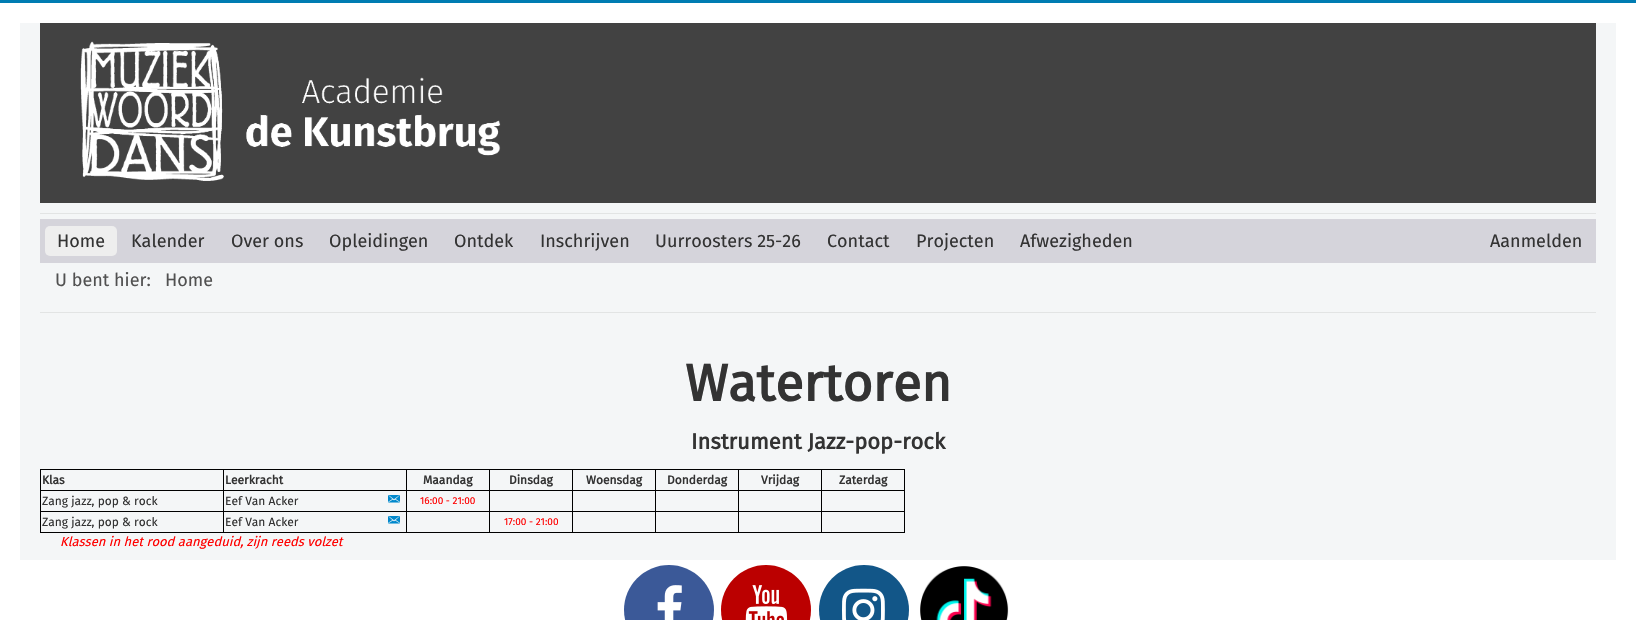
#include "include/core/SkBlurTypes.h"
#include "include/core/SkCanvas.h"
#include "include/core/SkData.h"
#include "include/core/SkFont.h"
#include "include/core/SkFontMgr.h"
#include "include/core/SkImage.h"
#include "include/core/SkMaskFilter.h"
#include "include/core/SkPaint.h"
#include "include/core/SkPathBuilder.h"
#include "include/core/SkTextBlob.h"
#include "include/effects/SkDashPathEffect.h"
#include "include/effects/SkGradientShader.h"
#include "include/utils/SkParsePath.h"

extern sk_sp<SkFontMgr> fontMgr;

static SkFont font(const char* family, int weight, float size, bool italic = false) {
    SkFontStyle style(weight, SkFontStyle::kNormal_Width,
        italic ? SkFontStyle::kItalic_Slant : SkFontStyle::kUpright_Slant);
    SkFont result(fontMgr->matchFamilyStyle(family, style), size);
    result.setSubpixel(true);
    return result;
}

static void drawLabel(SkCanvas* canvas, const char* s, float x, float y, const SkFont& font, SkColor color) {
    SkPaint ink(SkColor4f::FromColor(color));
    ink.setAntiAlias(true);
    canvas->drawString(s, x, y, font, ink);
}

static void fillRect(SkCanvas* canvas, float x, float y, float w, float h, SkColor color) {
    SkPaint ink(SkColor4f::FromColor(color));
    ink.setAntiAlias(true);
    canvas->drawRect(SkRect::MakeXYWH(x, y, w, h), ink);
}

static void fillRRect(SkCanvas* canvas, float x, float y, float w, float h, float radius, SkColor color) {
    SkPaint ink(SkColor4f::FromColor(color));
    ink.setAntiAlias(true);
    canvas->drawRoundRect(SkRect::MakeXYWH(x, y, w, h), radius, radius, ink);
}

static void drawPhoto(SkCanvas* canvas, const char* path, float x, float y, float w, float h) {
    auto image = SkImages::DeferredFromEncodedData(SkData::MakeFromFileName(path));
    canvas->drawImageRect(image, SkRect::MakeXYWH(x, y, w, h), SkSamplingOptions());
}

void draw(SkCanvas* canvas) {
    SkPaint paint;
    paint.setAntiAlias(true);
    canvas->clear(0xFFFFFFFF);
    fillRect(canvas, 0, 0, 1636, 3, 0xFF007CB2);
    fillRect(canvas, 20, 23, 1596, 537, 0xFFF4F6F7);
    fillRect(canvas, 40, 23, 1556, 180, 0xFF424242);
    drawPhoto(canvas, "assets/img1.png", 80, 41, 421, 140);
    fillRect(canvas, 40, 213, 1556, 1, 0xFFE2E4E4);
    fillRect(canvas, 40, 312, 1556, 1, 0xFFE2E4E4);
    fillRect(canvas, 40, 219, 1556, 44, 0xFFD5D4DB);
    fillRRect(canvas, 45, 226, 72, 30, 5, 0xFFEEEEEE);
    SkFont font1 = font("Fira Sans", 400, 18);
    drawLabel(canvas, "Home", 57, 247, font1, 0xFF333333);
    drawLabel(canvas, "Kalender", 131, 247, font1, 0xFF333333);
    drawLabel(canvas, "Over ons", 231, 247, font1, 0xFF333333);
    drawLabel(canvas, "Opleidingen", 329, 247, font1, 0xFF333333);
    drawLabel(canvas, "Ontdek", 454, 247, font1, 0xFF333333);
    drawLabel(canvas, "Inschrijven", 540, 247, font1, 0xFF333333);
    drawLabel(canvas, "Uurroosters 25-26", 655, 247, font1, 0xFF333333);
    drawLabel(canvas, "Contact", 827, 247, font1, 0xFF333333);
    drawLabel(canvas, "Projecten", 916, 247, font1, 0xFF333333);
    drawLabel(canvas, "Afwezigheden", 1020, 247, font1, 0xFF333333);
    drawLabel(canvas, "Aanmelden", 1490, 247, font1, 0xFF333333);
    drawLabel(canvas, "U bent hier:", 55, 286, font1, 0xFF515151);
    drawLabel(canvas, "Home", 165, 286, font1, 0xFF515151);
    SkFont font2 = font("Fira Sans", 700, 52);
    drawLabel(canvas, "Watertoren", 685, 401, font2, 0xFF333333);
    SkFont font3 = font("Fira Sans", 700, 22);
    drawLabel(canvas, "Instrument Jazz-pop-rock", 691, 449, font3, 0xFF333333);
    fillRect(canvas, 40, 469, 865, 1, 0xFF000000);
    fillRect(canvas, 904, 469, 1, 64, 0xFF000000);
    fillRect(canvas, 40, 532, 865, 1, 0xFF000000);
    fillRect(canvas, 40, 469, 1, 64, 0xFF000000);
    SkFont font4 = font("Fira Sans", 700, 12);
    drawLabel(canvas, "Klas", 42, 484, font4, 0xFF333333);
    fillRect(canvas, 821, 490, 84, 1, 0xFF000000);
    fillRect(canvas, 821, 511, 84, 1, 0xFF000000);
    fillRect(canvas, 821, 511, 1, 22, 0xFF000000);
    fillRect(canvas, 738, 511, 84, 1, 0xFF000000);
    fillRect(canvas, 821, 490, 1, 22, 0xFF000000);
    fillRect(canvas, 738, 490, 84, 1, 0xFF000000);
    fillRect(canvas, 738, 511, 1, 22, 0xFF000000);
    fillRect(canvas, 655, 511, 84, 1, 0xFF000000);
    fillRect(canvas, 738, 490, 1, 22, 0xFF000000);
    fillRect(canvas, 655, 490, 84, 1, 0xFF000000);
    fillRect(canvas, 655, 511, 1, 22, 0xFF000000);
    fillRect(canvas, 572, 511, 84, 1, 0xFF000000);
    fillRect(canvas, 655, 490, 1, 22, 0xFF000000);
    fillRect(canvas, 572, 490, 84, 1, 0xFF000000);
    fillRect(canvas, 572, 511, 1, 22, 0xFF000000);
    fillRect(canvas, 489, 511, 84, 1, 0xFF000000);
    fillRect(canvas, 572, 490, 1, 22, 0xFF000000);
    fillRect(canvas, 489, 490, 84, 1, 0xFF000000);
    fillRect(canvas, 489, 511, 1, 22, 0xFF000000);
    fillRect(canvas, 406, 511, 84, 1, 0xFF000000);
    fillRect(canvas, 489, 490, 1, 22, 0xFF000000);
    fillRect(canvas, 406, 490, 84, 1, 0xFF000000);
    fillRect(canvas, 406, 511, 1, 22, 0xFF000000);
    fillRect(canvas, 223, 511, 184, 1, 0xFF000000);
    fillRect(canvas, 406, 490, 1, 22, 0xFF000000);
    fillRect(canvas, 223, 490, 184, 1, 0xFF000000);
    fillRect(canvas, 223, 511, 1, 22, 0xFF000000);
    fillRect(canvas, 40, 511, 184, 1, 0xFF000000);
    fillRect(canvas, 223, 490, 1, 22, 0xFF000000);
    fillRect(canvas, 40, 490, 184, 1, 0xFF000000);
    fillRect(canvas, 223, 469, 1, 22, 0xFF000000);
    drawLabel(canvas, "Leerkracht", 225, 484, font4, 0xFF333333);
    fillRect(canvas, 406, 469, 1, 22, 0xFF000000);
    drawLabel(canvas, "Maandag", 423, 484, font4, 0xFF333333);
    fillRect(canvas, 489, 469, 1, 22, 0xFF000000);
    drawLabel(canvas, "Dinsdag", 509, 484, font4, 0xFF333333);
    fillRect(canvas, 572, 469, 1, 22, 0xFF000000);
    drawLabel(canvas, "Woensdag", 586, 484, font4, 0xFF333333);
    fillRect(canvas, 655, 469, 1, 22, 0xFF000000);
    drawLabel(canvas, "Donderdag", 667, 484, font4, 0xFF333333);
    fillRect(canvas, 738, 469, 1, 22, 0xFF000000);
    drawLabel(canvas, "Vrijdag", 761, 484, font4, 0xFF333333);
    fillRect(canvas, 821, 469, 1, 22, 0xFF000000);
    drawLabel(canvas, "Zaterdag", 839, 484, font4, 0xFF333333);
    SkFont font5 = font("Fira Sans", 400, 12);
    drawLabel(canvas, "Zang jazz, pop & rock", 42, 505, font5, 0xFF333333);
    drawLabel(canvas, "Eef Van Acker", 225, 505, font5, 0xFF333333);
    drawPhoto(canvas, "assets/img2.png", 388, 495, 12, 8);
    SkFont font6 = font("Fira Sans", 400, 10);
    drawLabel(canvas, "16:00 - 21:00", 420, 504, font6, 0xFFFF0000);
    drawLabel(canvas, "Zang jazz, pop & rock", 42, 526, font5, 0xFF333333);
    drawLabel(canvas, "Eef Van Acker", 225, 526, font5, 0xFF333333);
    drawPhoto(canvas, "assets/img2.png", 388, 516, 12, 8);
    drawLabel(canvas, "17:00 - 21:00", 504, 525, font6, 0xFFFF0000);
    SkFont font7 = font("Fira Sans", 400, 13, true);
    drawLabel(canvas, "Klassen in het rood aangeduid, zijn reeds volzet", 60, 546, font7, 0xFFFF0000);
    paint.setColor(0xFF3B5998);
    canvas->drawCircle(669, 610, 45, paint);
    drawPhoto(canvas, "assets/img3.png", 657, 585, 25, 35);
    paint.setColor(0xFFBB0000);
    canvas->drawCircle(766, 610, 45, paint);
    drawPhoto(canvas, "assets/img4.png", 745, 585, 43, 35);
    paint.setColor(0xFF125688);
    canvas->drawCircle(864, 610, 45, paint);
    drawPhoto(canvas, "assets/img5.png", 842, 588, 43, 32);
    drawPhoto(canvas, "assets/img6.png", 920, 566, 89, 54);
}
